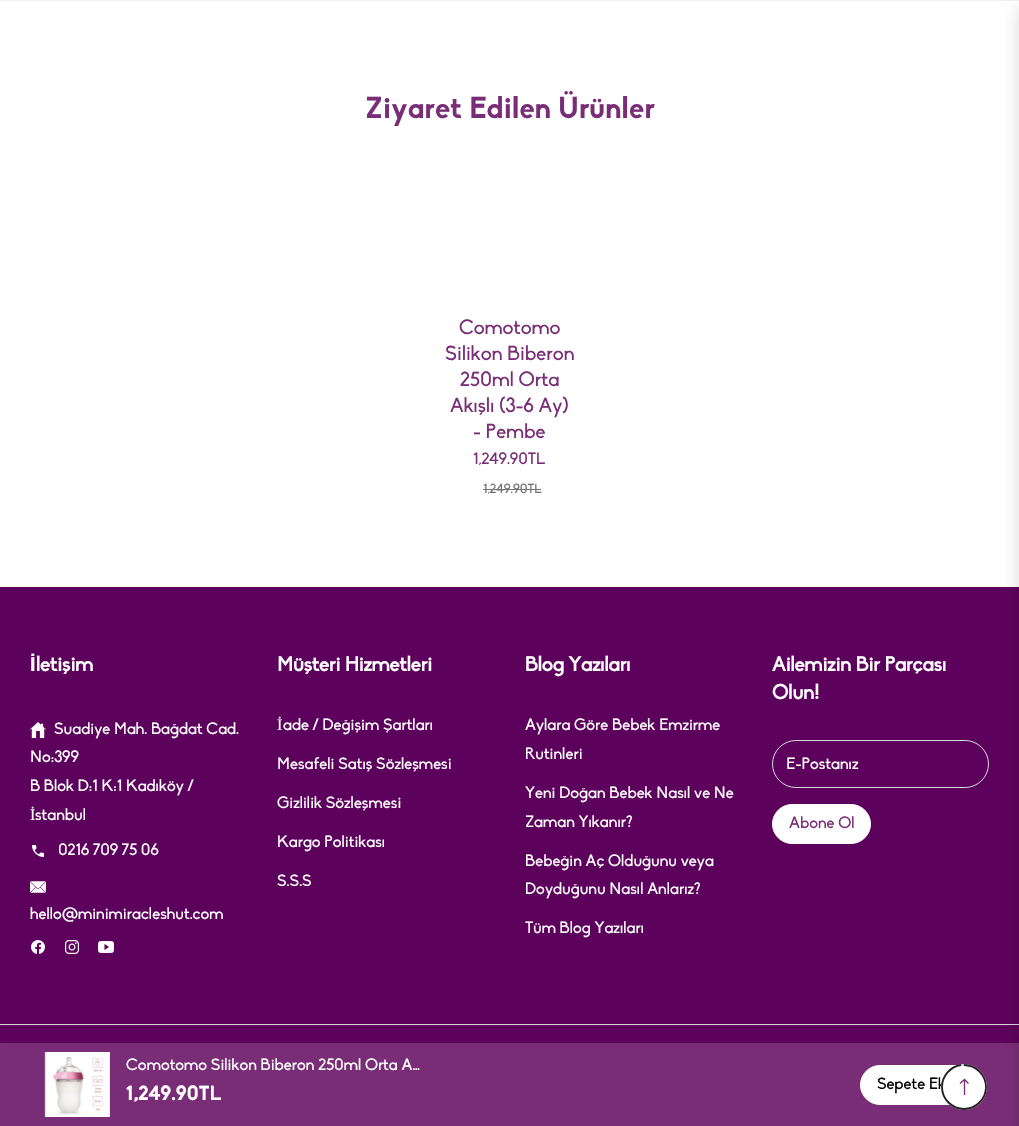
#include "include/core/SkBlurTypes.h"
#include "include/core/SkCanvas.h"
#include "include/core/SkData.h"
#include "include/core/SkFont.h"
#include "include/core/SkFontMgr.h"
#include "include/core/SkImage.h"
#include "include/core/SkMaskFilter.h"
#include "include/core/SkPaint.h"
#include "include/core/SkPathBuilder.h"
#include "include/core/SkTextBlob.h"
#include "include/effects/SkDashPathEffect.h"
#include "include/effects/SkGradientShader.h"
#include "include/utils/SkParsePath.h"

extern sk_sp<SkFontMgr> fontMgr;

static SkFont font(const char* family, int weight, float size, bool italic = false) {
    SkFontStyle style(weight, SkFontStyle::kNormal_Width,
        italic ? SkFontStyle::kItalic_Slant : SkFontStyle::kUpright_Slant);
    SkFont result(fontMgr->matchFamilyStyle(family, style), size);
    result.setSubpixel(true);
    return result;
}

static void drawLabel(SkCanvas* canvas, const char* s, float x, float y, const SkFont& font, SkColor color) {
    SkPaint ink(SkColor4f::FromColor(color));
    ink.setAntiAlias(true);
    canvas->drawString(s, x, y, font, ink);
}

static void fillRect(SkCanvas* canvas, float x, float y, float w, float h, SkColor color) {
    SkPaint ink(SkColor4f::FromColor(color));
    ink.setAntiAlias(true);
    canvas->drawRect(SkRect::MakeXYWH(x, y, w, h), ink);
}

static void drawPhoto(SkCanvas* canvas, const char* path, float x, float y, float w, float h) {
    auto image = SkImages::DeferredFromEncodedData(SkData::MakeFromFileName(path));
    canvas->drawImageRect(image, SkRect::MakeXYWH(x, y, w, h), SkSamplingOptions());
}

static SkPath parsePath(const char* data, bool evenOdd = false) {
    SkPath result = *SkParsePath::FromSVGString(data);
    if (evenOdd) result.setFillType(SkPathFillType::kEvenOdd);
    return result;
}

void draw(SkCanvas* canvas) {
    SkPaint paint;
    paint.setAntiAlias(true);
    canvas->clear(0xFFFFFFFF);
    paint.setStroke(true);
    paint.setStrokeWidth(1);
    paint.setColor(0xFFF2F2F2);
    canvas->drawRect(SkRect::MakeXYWH(-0.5f, -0.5f, 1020, 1), paint);
    fillRect(canvas, 0, 587, 1019, 456, 0xFF5C025C);
    paint.setStroke(false);
    paint.setColor(0x26000000);
    paint.setMaskFilter(SkMaskFilter::MakeBlur(kNormal_SkBlurStyle, 8));
    canvas->drawRect(SkRect::MakeXYWH(0, 1051, 1019, 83), paint);
    paint.setMaskFilter(nullptr);
    fillRect(canvas, 0, 1043, 1019, 83, 0xFF782D76);
    fillRect(canvas, 0, 1024, 1019, 1, 0xFFD9D7DD);
    paint.setMaskFilter(SkMaskFilter::MakeBlur(kNormal_SkBlurStyle, 8));
    canvas->drawRect(SkRect::MakeXYWH(1019, 8, 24, 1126), paint);
    paint.setMaskFilter(nullptr);
    SkFont font1 = font("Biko", 700, 30);
    drawLabel(canvas, "Ziyaret Edilen Ürünler", 365, 118, font1, 0xFF782D76);
    SkFont font2 = font("Biko", 400, 20);
    drawLabel(canvas, "Comotomo", 459, 334, font2, 0xFF782D76);
    drawLabel(canvas, "Silikon Biberon", 445, 360, font2, 0xFF782D76);
    drawLabel(canvas, "250ml Orta", 460, 386, font2, 0xFF782D76);
    drawLabel(canvas, "Akışlı (3-6 Ay)", 450, 412, font2, 0xFF782D76);
    drawLabel(canvas, "- Pembe", 473, 438, font2, 0xFF782D76);
    SkFont font3 = font("Biko", 400, 16);
    drawLabel(canvas, "1,249.90TL", 473, 464, font3, 0xFF782D76);
    SkFont font4 = font("Biko", 400, 13);
    drawLabel(canvas, "1,249.90TL", 483, 493, font4, 0xFF737373);
    fillRect(canvas, 483, 489, 58, 1, 0xFF737373);
    drawPhoto(canvas, "assets/img1.png", 44, 1052, 66, 65);
    drawLabel(canvas, "Comotomo Silikon Biberon 250ml Orta A…", 126, 1070, font3, 0xFFFFFFFF);
    SkFont font5 = font("Biko", 700, 20);
    drawLabel(canvas, "1,249.90TL", 126, 1100, font5, 0xFFFFFFFF);
    paint.setColor(0xFFFFFFFF);
    canvas->drawRoundRect(SkRect::MakeXYWH(860.5f, 1065.5f, 114, 39), 19.5f, 19.5f, paint);
    paint.setStroke(true);
    canvas->drawRoundRect(SkRect::MakeXYWH(860.5f, 1065.5f, 114, 39), 19.5f, 19.5f, paint);
    drawLabel(canvas, "Sepete Ek", 877, 1089, font3, 0xFF000000);
    SkFont font6 = font("Liberation Sans", 700, 20);
    drawLabel(canvas, "İ", 30, 671, font6, 0xFFFFFFFF);
    SkFont font7 = font("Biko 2", 700, 20);
    drawLabel(canvas, "letişim", 36, 671, font7, 0xFFFFFFFF);
    drawPhoto(canvas, "assets/img2.png", 30, 722, 16, 16);
    drawLabel(canvas, "Suadiye Mah. Bağdat Cad.", 54, 734, font3, 0xFFFFFFFF);
    drawLabel(canvas, "No:399", 30, 762, font3, 0xFFFFFFFF);
    drawLabel(canvas, "B Blok D:1 K:1 Kadıköy /", 30, 791, font3, 0xFFFFFFFF);
    SkFont font8 = font("Liberation Serif", 400, 16);
    drawLabel(canvas, "İ", 30, 820, font8, 0xFFFFFFFF);
    drawLabel(canvas, "stanbul", 35, 820, font3, 0xFFFFFFFF);
    drawPhoto(canvas, "assets/img3.png", 32, 845, 12, 12);
    drawLabel(canvas, "0216 709 75 06", 58, 855, font3, 0xFFFFFFFF);
    drawPhoto(canvas, "assets/img4.png", 30, 881, 16, 12);
    drawLabel(canvas, "hello@minimiracleshut.com", 30, 919, font3, 0xFFFFFFFF);
    drawPhoto(canvas, "assets/img5.png", 31, 940, 14, 14);
    drawPhoto(canvas, "assets/img6.png", 65, 940, 14, 14);
    drawPhoto(canvas, "assets/img7.png", 98, 941, 16, 12);
    drawLabel(canvas, "Müşteri Hizmetleri", 277, 671, font7, 0xFFFFFFFF);
    drawLabel(canvas, "İ", 277, 730, font8, 0xFFFFFFFF);
    drawLabel(canvas, "ade / Değişim Şartları", 283, 730, font3, 0xFFFFFFFF);
    drawLabel(canvas, "Mesafeli Satış Sözleşmesi", 277, 769, font3, 0xFFFFFFFF);
    drawLabel(canvas, "Gizlilik Sözleşmesi", 277, 808, font3, 0xFFFFFFFF);
    drawLabel(canvas, "Kargo Politikası", 277, 847, font3, 0xFFFFFFFF);
    drawLabel(canvas, "S.S.S", 277, 886, font3, 0xFFFFFFFF);
    drawLabel(canvas, "Blog Yazıları", 525, 671, font7, 0xFFFFFFFF);
    drawLabel(canvas, "Aylara Göre Bebek Emzirme", 525, 730, font3, 0xFFFFFFFF);
    drawLabel(canvas, "Rutinleri", 525, 759, font3, 0xFFFFFFFF);
    drawLabel(canvas, "Yeni Doğan Bebek Nasıl ve Ne", 525, 798, font3, 0xFFFFFFFF);
    drawLabel(canvas, "Zaman Yıkanır?", 525, 827, font3, 0xFFFFFFFF);
    drawLabel(canvas, "Bebeğin Aç Olduğunu veya", 525, 866, font3, 0xFFFFFFFF);
    drawLabel(canvas, "Doyduğunu Nasıl Anlarız?", 525, 894, font3, 0xFFFFFFFF);
    drawLabel(canvas, "Tüm Blog Yazıları", 525, 933, font3, 0xFFFFFFFF);
    drawLabel(canvas, "Ailemizin Bir Parçası", 772, 671, font7, 0xFFFFFFFF);
    drawLabel(canvas, "Olun!", 772, 699, font7, 0xFFFFFFFF);
    paint.setColor(0xFFD9D7DD);
    canvas->drawRoundRect(SkRect::MakeXYWH(772.5f, 740.5f, 216, 47), 23.5f, 23.5f, paint);
    drawLabel(canvas, "E-Postanız", 786, 769, font3, 0xFFFFFFFF);
    paint.setStroke(false);
    paint.setColor(0xFFFFFFFF);
    canvas->drawRoundRect(SkRect::MakeXYWH(772.5f, 804.5f, 98, 39), 19.5f, 19.5f, paint);
    paint.setStroke(true);
    canvas->drawRoundRect(SkRect::MakeXYWH(772.5f, 804.5f, 98, 39), 19.5f, 19.5f, paint);
    drawLabel(canvas, "Abone Ol", 789, 828, font3, 0xFF782D76);
    paint.setStroke(false);
    canvas->drawCircle(964, 1087, 23, paint);
    paint.setStroke(true);
    paint.setStrokeWidth(2);
    paint.setColor(0x33782D76);
    canvas->drawCircle(964, 1087, 22, paint);
    paint.setStrokeWidth(1.8f);
    paint.setColor(0xFF222222);
    canvas->drawPath(parsePath("M964 1065C976 1065 986 1075 986 1087C986 1099 976 1109 964 1109C952 1109 942 1099 942 1087C942 1076 950.5 1066.5 961 1065"), paint);
    paint.setStrokeWidth(1.3f);
    paint.setColor(0xFF782D76);
    canvas->drawPath(parsePath("M968.5 1083.5L964.5 1079.5L960 1083.5M964.5 1079.5V1095"), paint);
}
